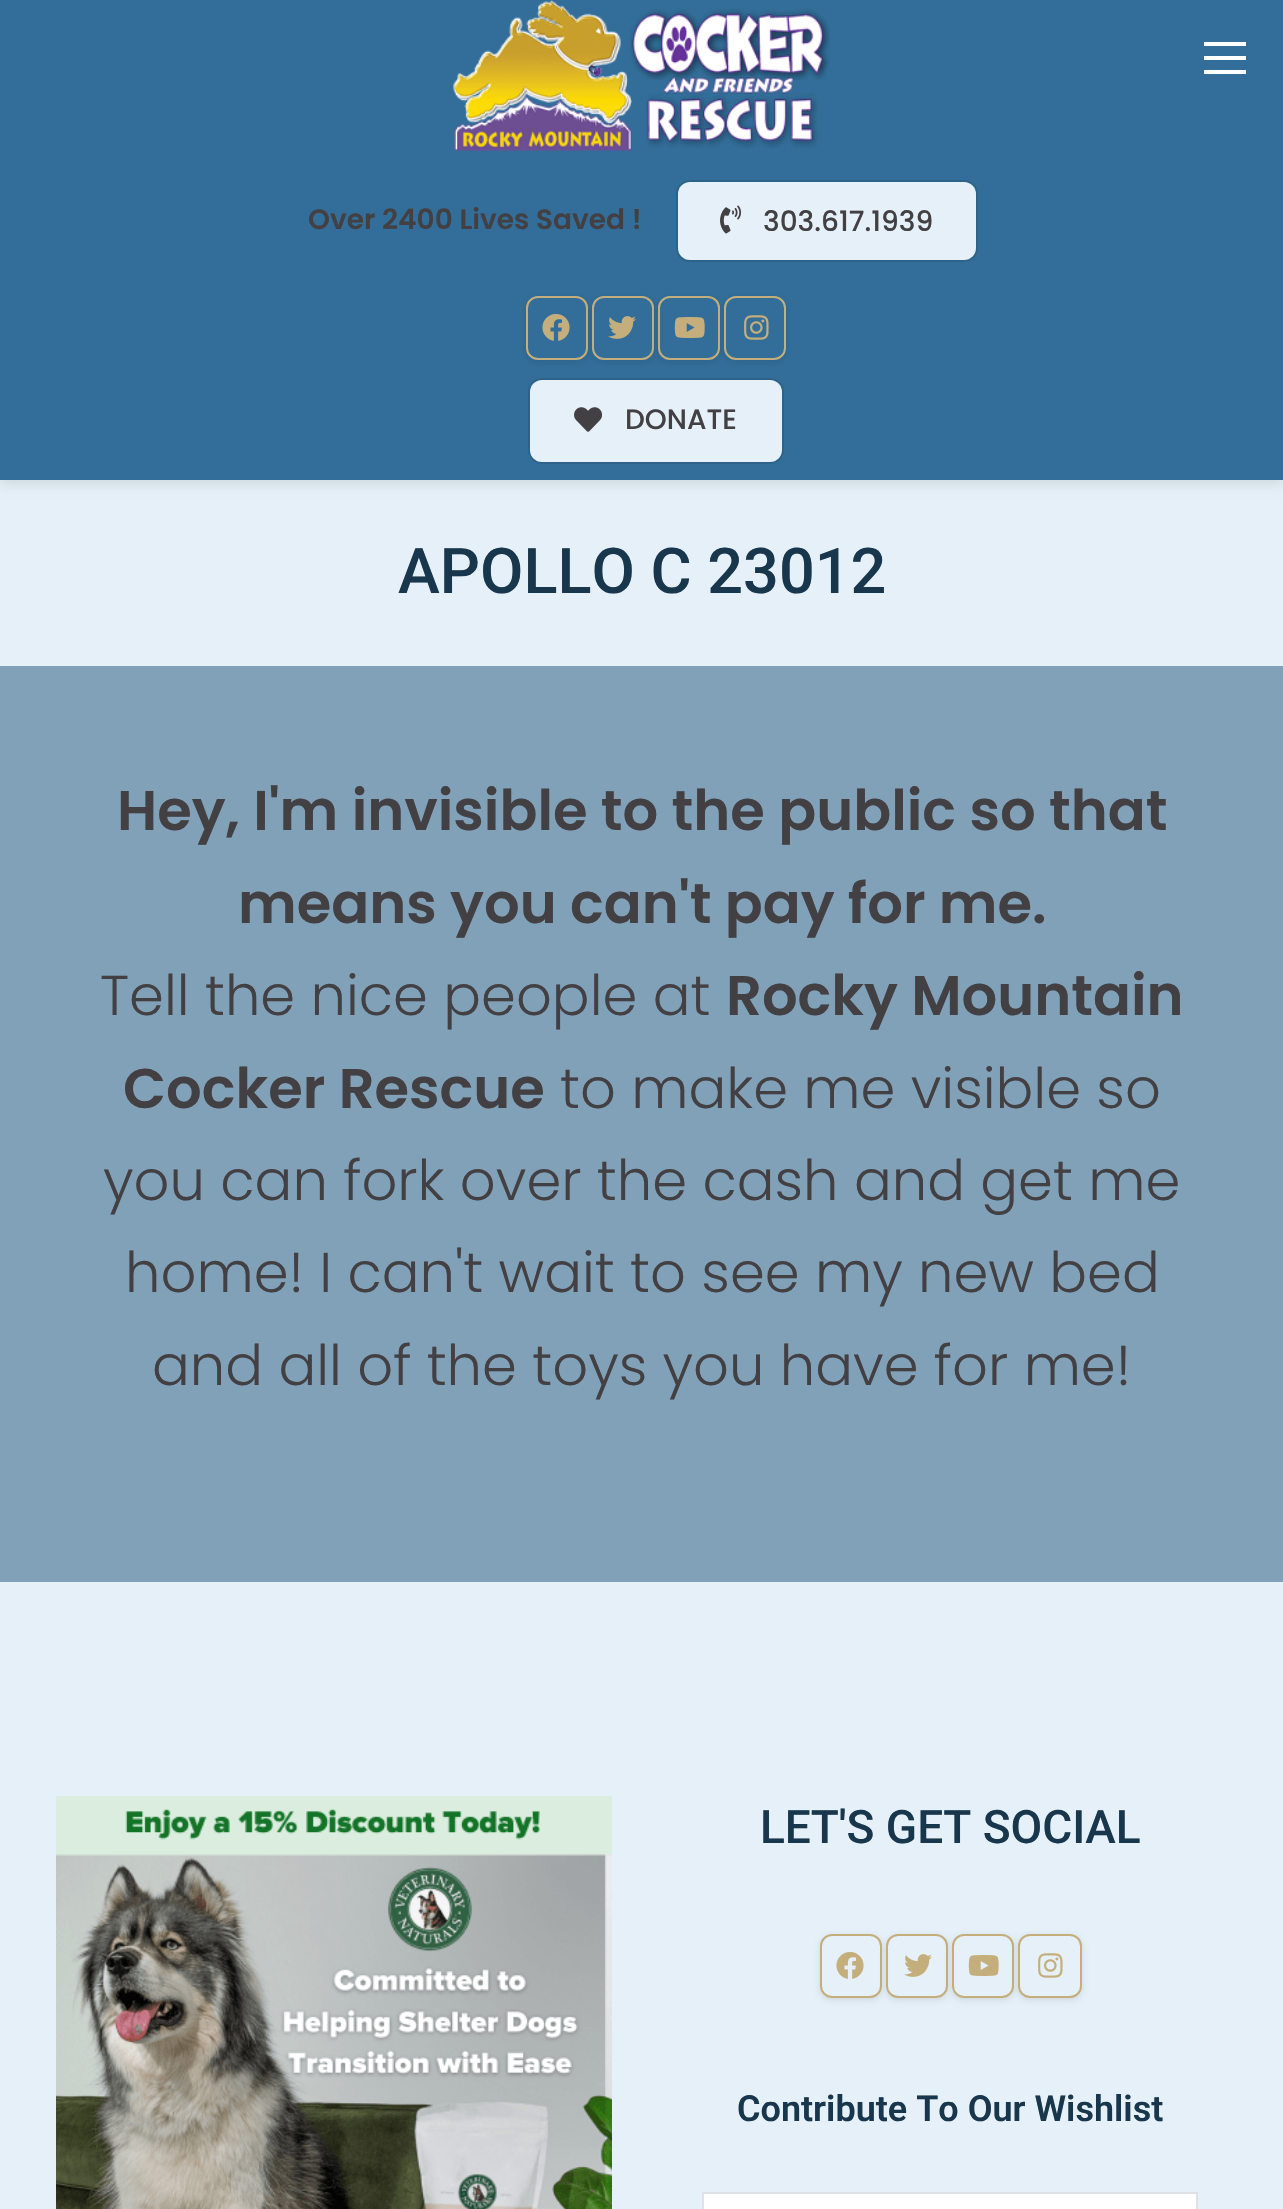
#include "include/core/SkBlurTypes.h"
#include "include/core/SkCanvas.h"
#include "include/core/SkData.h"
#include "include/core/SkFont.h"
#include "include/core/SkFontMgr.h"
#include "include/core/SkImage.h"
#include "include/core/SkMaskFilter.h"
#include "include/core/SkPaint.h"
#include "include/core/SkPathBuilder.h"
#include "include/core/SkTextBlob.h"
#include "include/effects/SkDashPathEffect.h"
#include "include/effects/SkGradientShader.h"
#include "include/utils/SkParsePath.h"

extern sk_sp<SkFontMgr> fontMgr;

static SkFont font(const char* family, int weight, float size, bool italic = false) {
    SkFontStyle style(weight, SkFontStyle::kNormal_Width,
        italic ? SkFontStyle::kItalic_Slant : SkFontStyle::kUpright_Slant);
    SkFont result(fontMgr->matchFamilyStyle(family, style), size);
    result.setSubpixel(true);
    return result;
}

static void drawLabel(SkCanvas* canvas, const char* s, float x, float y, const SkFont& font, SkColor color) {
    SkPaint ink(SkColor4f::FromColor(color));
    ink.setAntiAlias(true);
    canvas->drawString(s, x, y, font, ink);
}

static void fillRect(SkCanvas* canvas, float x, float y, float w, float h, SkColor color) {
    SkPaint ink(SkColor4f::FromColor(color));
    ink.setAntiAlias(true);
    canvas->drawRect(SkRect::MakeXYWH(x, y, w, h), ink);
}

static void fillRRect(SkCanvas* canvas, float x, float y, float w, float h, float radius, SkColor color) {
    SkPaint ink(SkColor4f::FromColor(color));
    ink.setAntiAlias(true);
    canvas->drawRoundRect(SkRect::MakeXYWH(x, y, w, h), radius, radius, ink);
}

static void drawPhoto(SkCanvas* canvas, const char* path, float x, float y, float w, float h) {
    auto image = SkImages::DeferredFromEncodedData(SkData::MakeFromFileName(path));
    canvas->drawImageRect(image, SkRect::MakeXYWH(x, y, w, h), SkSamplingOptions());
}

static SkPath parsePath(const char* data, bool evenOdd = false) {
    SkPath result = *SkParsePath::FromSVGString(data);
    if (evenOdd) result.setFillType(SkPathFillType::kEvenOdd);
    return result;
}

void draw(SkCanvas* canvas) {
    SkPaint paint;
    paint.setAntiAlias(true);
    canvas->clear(0xFFE5F0F8);
    paint.setColor(0x1A000000);
    paint.setMaskFilter(SkMaskFilter::MakeBlur(kNormal_SkBlurStyle, 6));
    canvas->drawRect(SkRect::MakeXYWH(0, -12, 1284, 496), paint);
    paint.setMaskFilter(nullptr);
    fillRect(canvas, 0, 0, 1283, 480, 0xFF326E99);
    fillRect(canvas, 1204, 42, 42, 4, 0xFFFFFFFF);
    fillRect(canvas, 1204, 56, 42, 4, 0xFFFFFFFF);
    fillRect(canvas, 1204, 70, 42, 4, 0xFFFFFFFF);
    drawPhoto(canvas, "assets/img1.png", 453, 0, 377, 151);
    SkFont font1 = font("Poppins", 600, 28);
    drawLabel(canvas, "Over 2400 Lives Saved !", 308, 229, font1, 0xFF434044);
    paint.setStroke(true);
    paint.setStrokeWidth(2);
    paint.setColor(0xFF2D638A);
    canvas->drawRoundRect(SkRect::MakeXYWH(677, 181, 300, 80), 13, 13, paint);
    fillRRect(canvas, 678, 182, 298, 78, 12, 0xFFE5F0F8);
    drawPhoto(canvas, "assets/img2.png", 720, 205, 22, 29);
    SkFont font2 = font("Poppins", 500, 28);
    drawLabel(canvas, "303.617.1939", 763, 231, font2, 0xFF434044);
    canvas->save();
    canvas->clipPath(parsePath("M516 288H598V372H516ZM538 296H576C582.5 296 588 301.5 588 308V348C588 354.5 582.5 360 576 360H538C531.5 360 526 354.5 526 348V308C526 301.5 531.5 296 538 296Z", true), true);
    paint.setStroke(false);
    paint.setColor(0x1A000000);
    paint.setMaskFilter(SkMaskFilter::MakeBlur(kNormal_SkBlurStyle, 3));
    canvas->drawRoundRect(SkRect::MakeXYWH(526, 298, 62, 64), 12, 12, paint);
    paint.setMaskFilter(nullptr);
    canvas->restore();
    paint.setStroke(true);
    paint.setColor(0xFFC4AE7C);
    canvas->drawRoundRect(SkRect::MakeXYWH(527, 297, 60, 62), 11, 11, paint);
    drawPhoto(canvas, "assets/img3.png", 542, 314, 28, 27);
    canvas->save();
    canvas->clipPath(parsePath("M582 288H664V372H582ZM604 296H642C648.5 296 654 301.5 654 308V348C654 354.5 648.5 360 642 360H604C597.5 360 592 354.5 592 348V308C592 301.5 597.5 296 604 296Z", true), true);
    paint.setStroke(false);
    paint.setColor(0x1A000000);
    paint.setMaskFilter(SkMaskFilter::MakeBlur(kNormal_SkBlurStyle, 3));
    canvas->drawRoundRect(SkRect::MakeXYWH(592, 298, 62, 64), 12, 12, paint);
    paint.setMaskFilter(nullptr);
    canvas->restore();
    paint.setStroke(true);
    paint.setColor(0xFFC4AE7C);
    canvas->drawRoundRect(SkRect::MakeXYWH(593, 297, 60, 62), 11, 11, paint);
    drawPhoto(canvas, "assets/img4.png", 608, 316, 28, 23);
    canvas->save();
    canvas->clipPath(parsePath("M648 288H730V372H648ZM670 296H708C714.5 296 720 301.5 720 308V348C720 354.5 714.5 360 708 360H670C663.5 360 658 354.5 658 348V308C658 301.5 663.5 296 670 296Z", true), true);
    paint.setStroke(false);
    paint.setColor(0x1A000000);
    paint.setMaskFilter(SkMaskFilter::MakeBlur(kNormal_SkBlurStyle, 3));
    canvas->drawRoundRect(SkRect::MakeXYWH(658, 298, 62, 64), 12, 12, paint);
    paint.setMaskFilter(nullptr);
    canvas->restore();
    paint.setStroke(true);
    paint.setColor(0xFFC4AE7C);
    canvas->drawRoundRect(SkRect::MakeXYWH(659, 297, 60, 62), 11, 11, paint);
    drawPhoto(canvas, "assets/img5.png", 674, 317, 31, 21);
    canvas->save();
    canvas->clipPath(parsePath("M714 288H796V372H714ZM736 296H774C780.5 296 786 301.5 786 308V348C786 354.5 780.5 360 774 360H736C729.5 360 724 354.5 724 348V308C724 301.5 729.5 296 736 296Z", true), true);
    paint.setStroke(false);
    paint.setColor(0x1A000000);
    paint.setMaskFilter(SkMaskFilter::MakeBlur(kNormal_SkBlurStyle, 3));
    canvas->drawRoundRect(SkRect::MakeXYWH(724, 298, 62, 64), 12, 12, paint);
    paint.setMaskFilter(nullptr);
    canvas->restore();
    paint.setStroke(true);
    paint.setColor(0xFFC4AE7C);
    canvas->drawRoundRect(SkRect::MakeXYWH(725, 297, 60, 62), 11, 11, paint);
    drawPhoto(canvas, "assets/img6.png", 744, 315, 25, 25);
    paint.setColor(0xFF2D638A);
    canvas->drawRoundRect(SkRect::MakeXYWH(529, 379, 254, 84), 13, 13, paint);
    fillRRect(canvas, 530, 380, 252, 82, 12, 0xFFE5F0F8);
    drawPhoto(canvas, "assets/img7.png", 574, 407, 29, 25);
    drawLabel(canvas, "DONATE", 625, 429, font2, 0xFF434044);
    SkFont font3 = font("Roboto", 500, 63);
    drawLabel(canvas, "APOLLO C 23012", 398, 593, font3, 0xFF19374C);
    fillRect(canvas, 0, 666, 1283, 916, 0xFF81A1B8);
    SkFont font4 = font("Poppins", 600, 56);
    drawLabel(canvas, "Hey, I'm invisible to the public so that", 117, 830, font4, 0xFF434044);
    drawLabel(canvas, "means you can't pay for me.", 238, 923, font4, 0xFF434044);
    SkFont font5 = font("Poppins", 300, 56);
    drawLabel(canvas, "Tell the nice people at", 100, 1015, font5, 0xFF434044);
    drawLabel(canvas, "Rocky Mountain", 726, 1015, font4, 0xFF434044);
    drawLabel(canvas, "Cocker Rescue", 123, 1108, font4, 0xFF434044);
    drawLabel(canvas, "to make me visible so", 560, 1108, font5, 0xFF434044);
    drawLabel(canvas, "you can fork over the cash and get me", 103, 1200, font5, 0xFF434044);
    drawLabel(canvas, "home! I can't wait to see my new bed", 125, 1292, font5, 0xFF434044);
    drawLabel(canvas, "and all of the toys you have for me!", 152, 1385, font5, 0xFF434044);
    drawPhoto(canvas, "assets/img8.png", 56, 1796, 556, 413);
    SkFont font6 = font("Roboto", 500, 46);
    drawLabel(canvas, "LET'S GET SOCIAL", 760, 1843, font6, 0xFF19374C);
    canvas->save();
    canvas->clipPath(parsePath("M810 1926H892V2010H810ZM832 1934H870C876.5 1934 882 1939.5 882 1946V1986C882 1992.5 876.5 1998 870 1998H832C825.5 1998 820 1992.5 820 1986V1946C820 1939.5 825.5 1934 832 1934Z", true), true);
    paint.setStroke(false);
    paint.setColor(0x1A000000);
    paint.setMaskFilter(SkMaskFilter::MakeBlur(kNormal_SkBlurStyle, 3));
    canvas->drawRoundRect(SkRect::MakeXYWH(820, 1936, 62, 64), 12, 12, paint);
    paint.setMaskFilter(nullptr);
    canvas->restore();
    paint.setStroke(true);
    paint.setColor(0xFFC4AE7C);
    canvas->drawRoundRect(SkRect::MakeXYWH(821, 1935, 60, 62), 11, 11, paint);
    drawPhoto(canvas, "assets/img9.png", 836, 1952, 28, 27);
    canvas->save();
    canvas->clipPath(parsePath("M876 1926H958V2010H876ZM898 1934H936C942.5 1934 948 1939.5 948 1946V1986C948 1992.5 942.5 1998 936 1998H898C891.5 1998 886 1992.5 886 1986V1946C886 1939.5 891.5 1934 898 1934Z", true), true);
    paint.setStroke(false);
    paint.setColor(0x1A000000);
    paint.setMaskFilter(SkMaskFilter::MakeBlur(kNormal_SkBlurStyle, 3));
    canvas->drawRoundRect(SkRect::MakeXYWH(886, 1936, 62, 64), 12, 12, paint);
    paint.setMaskFilter(nullptr);
    canvas->restore();
    paint.setStroke(true);
    paint.setColor(0xFFC4AE7C);
    canvas->drawRoundRect(SkRect::MakeXYWH(887, 1935, 60, 62), 11, 11, paint);
    drawPhoto(canvas, "assets/img10.png", 904, 1954, 28, 23);
    canvas->save();
    canvas->clipPath(parsePath("M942 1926H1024V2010H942ZM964 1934H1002C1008.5 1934 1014 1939.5 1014 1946V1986C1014 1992.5 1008.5 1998 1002 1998H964C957.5 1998 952 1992.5 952 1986V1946C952 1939.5 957.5 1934 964 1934Z", true), true);
    paint.setStroke(false);
    paint.setColor(0x1A000000);
    paint.setMaskFilter(SkMaskFilter::MakeBlur(kNormal_SkBlurStyle, 3));
    canvas->drawRoundRect(SkRect::MakeXYWH(952, 1936, 62, 64), 12, 12, paint);
    paint.setMaskFilter(nullptr);
    canvas->restore();
    paint.setStroke(true);
    paint.setColor(0xFFC4AE7C);
    canvas->drawRoundRect(SkRect::MakeXYWH(953, 1935, 60, 62), 11, 11, paint);
    drawPhoto(canvas, "assets/img11.png", 968, 1955, 31, 21);
    canvas->save();
    canvas->clipPath(parsePath("M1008 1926H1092V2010H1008ZM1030 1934H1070C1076.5 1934 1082 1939.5 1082 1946V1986C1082 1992.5 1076.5 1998 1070 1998H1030C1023.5 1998 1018 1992.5 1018 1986V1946C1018 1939.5 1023.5 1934 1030 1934Z", true), true);
    paint.setStroke(false);
    paint.setColor(0x1A000000);
    paint.setMaskFilter(SkMaskFilter::MakeBlur(kNormal_SkBlurStyle, 3));
    canvas->drawRoundRect(SkRect::MakeXYWH(1018, 1936, 64, 64), 12, 12, paint);
    paint.setMaskFilter(nullptr);
    canvas->restore();
    paint.setStroke(true);
    paint.setColor(0xFFC4AE7C);
    canvas->drawRoundRect(SkRect::MakeXYWH(1019, 1935, 62, 62), 11, 11, paint);
    drawPhoto(canvas, "assets/img12.png", 1038, 1953, 25, 25);
    SkFont font7 = font("Roboto", 600, 36);
    drawLabel(canvas, "Contribute To Our Wishlist", 737, 2121, font7, 0xFF19374C);
    paint.setColor(0xFFDEE2E6);
    canvas->drawRect(SkRect::MakeXYWH(703, 2193, 494, 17), paint);
    fillRect(canvas, 704, 2194, 492, 15, 0xFFFFFFFF);
}
